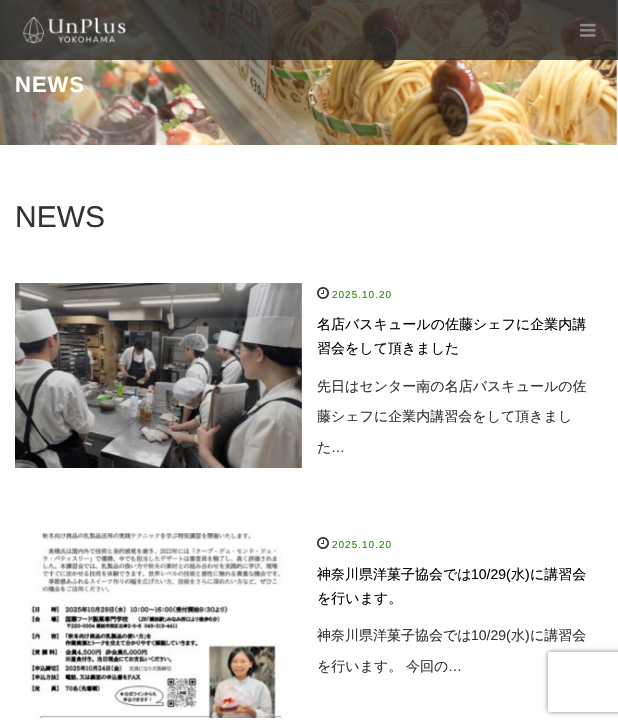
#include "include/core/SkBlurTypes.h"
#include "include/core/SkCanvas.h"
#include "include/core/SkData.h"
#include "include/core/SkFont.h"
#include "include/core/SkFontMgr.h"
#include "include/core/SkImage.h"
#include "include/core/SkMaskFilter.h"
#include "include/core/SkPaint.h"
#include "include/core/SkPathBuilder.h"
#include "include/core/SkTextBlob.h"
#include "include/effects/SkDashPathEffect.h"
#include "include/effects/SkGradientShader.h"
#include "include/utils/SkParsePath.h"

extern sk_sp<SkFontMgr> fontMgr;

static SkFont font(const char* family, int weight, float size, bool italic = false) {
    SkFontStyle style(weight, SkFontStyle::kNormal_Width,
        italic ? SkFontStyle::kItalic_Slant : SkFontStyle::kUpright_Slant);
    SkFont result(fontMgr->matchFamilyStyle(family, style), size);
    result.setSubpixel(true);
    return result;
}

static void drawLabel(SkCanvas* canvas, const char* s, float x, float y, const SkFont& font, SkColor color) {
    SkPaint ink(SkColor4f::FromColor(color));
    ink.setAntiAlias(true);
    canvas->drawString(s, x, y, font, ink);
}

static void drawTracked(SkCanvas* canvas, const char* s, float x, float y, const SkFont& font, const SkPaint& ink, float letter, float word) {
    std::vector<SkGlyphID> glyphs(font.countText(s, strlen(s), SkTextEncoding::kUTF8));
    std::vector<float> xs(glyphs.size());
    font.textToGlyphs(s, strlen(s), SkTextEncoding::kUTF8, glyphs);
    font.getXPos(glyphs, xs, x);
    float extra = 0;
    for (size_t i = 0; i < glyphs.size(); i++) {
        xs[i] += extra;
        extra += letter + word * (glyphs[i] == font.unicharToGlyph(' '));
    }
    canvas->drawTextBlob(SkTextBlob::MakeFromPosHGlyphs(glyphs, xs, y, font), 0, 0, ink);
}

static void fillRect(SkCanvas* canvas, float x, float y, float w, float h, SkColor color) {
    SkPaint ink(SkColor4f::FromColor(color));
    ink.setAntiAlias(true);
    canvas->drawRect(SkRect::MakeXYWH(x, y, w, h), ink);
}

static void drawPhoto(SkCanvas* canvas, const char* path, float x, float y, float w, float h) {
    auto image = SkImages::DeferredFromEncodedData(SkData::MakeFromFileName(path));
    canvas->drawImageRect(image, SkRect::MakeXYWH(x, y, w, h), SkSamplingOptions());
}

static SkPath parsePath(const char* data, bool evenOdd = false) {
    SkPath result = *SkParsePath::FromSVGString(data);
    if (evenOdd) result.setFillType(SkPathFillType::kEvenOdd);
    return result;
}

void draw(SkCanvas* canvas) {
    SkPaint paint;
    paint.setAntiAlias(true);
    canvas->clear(0xFFFFFFFF);
    drawPhoto(canvas, "assets/img1.png", 0, 0, 618, 145);
    fillRect(canvas, 0, 0, 618, 60, 0xCC282828);
    drawPhoto(canvas, "assets/img2.png", 22, 16, 104, 28);
    drawPhoto(canvas, "assets/img3.png", 580, 23, 16, 14);
    SkFont font1 = font("Liberation Sans", 700, 22);
    paint.setColor(0xFFFFFFFF);
    drawTracked(canvas, "NEWS", 15, 92, font1, paint, 1, 0);
    SkFont font2 = font("Liberation Sans", 400, 30);
    drawLabel(canvas, "NEWS", 15, 227, font2, 0xFF333333);
    drawPhoto(canvas, "assets/img4.png", 15, 283, 287, 185);
    drawPhoto(canvas, "assets/img5.png", 317, 287, 12, 12);
    SkFont font3 = font("Liberation Sans", 400, 10);
    paint.setColor(0xFF238C00);
    drawTracked(canvas, "2025.10.20", 332, 298, font3, paint, 1, 0);
    SkFont font4 = font("WenQuanYi Zen Hei", 500, 14);
    drawLabel(canvas, "名店バスキュールの佐藤シェフに企業内講", 317, 329, font4, 0xFF000000);
    drawLabel(canvas, "習会をして頂きました", 317, 353, font4, 0xFF000000);
    drawLabel(canvas, "先日はセンター南の名店バスキュールの佐", 317, 391, font4, 0xFF333333);
    drawLabel(canvas, "藤シェフに企業内講習会をして頂きまし", 317, 421, font4, 0xFF333333);
    drawLabel(canvas, "た", 317, 452, font4, 0xFF333333);
    SkFont font5 = font("Liberation Sans", 400, 14);
    drawLabel(canvas, "…", 331, 452, font5, 0xFF333333);
    drawPhoto(canvas, "assets/img6.png", 30, 533, 252, 185);
    drawPhoto(canvas, "assets/img5.png", 317, 537, 12, 12);
    drawTracked(canvas, "2025.10.20", 332, 548, font3, paint, 1, 0);
    drawLabel(canvas, "神奈川県洋菓子協会では", 317, 579, font4, 0xFF000000);
    drawLabel(canvas, "10/29(", 471, 579, font5, 0xFF000000);
    drawLabel(canvas, "水", 511, 579, font4, 0xFF000000);
    drawLabel(canvas, ")", 525, 579, font5, 0xFF000000);
    drawLabel(canvas, "に講習会", 530, 579, font4, 0xFF000000);
    drawLabel(canvas, "を行います。", 317, 603, font4, 0xFF000000);
    drawLabel(canvas, "神奈川県洋菓子協会では", 317, 640, font4, 0xFF333333);
    drawLabel(canvas, "10/29(", 471, 640, font5, 0xFF333333);
    drawLabel(canvas, "水", 511, 640, font4, 0xFF333333);
    drawLabel(canvas, ")", 525, 640, font5, 0xFF333333);
    drawLabel(canvas, "に講習会", 530, 640, font4, 0xFF333333);
    drawLabel(canvas, "を行います。", 317, 671, font4, 0xFF333333);
    drawLabel(canvas, "今回の", 406, 671, font4, 0xFF333333);
    drawLabel(canvas, "…", 448, 671, font5, 0xFF333333);
    canvas->save();
    canvas->clipPath(parsePath("M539 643H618V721H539ZM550 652H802C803 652 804 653 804 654V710C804 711 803 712 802 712H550C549 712 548 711 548 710V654C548 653 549 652 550 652Z", true), true);
    paint.setColor(0xFF808080);
    paint.setMaskFilter(SkMaskFilter::MakeBlur(kNormal_SkBlurStyle, 2.5f));
    canvas->drawRoundRect(SkRect::MakeXYWH(548, 652, 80, 60), 2, 2, paint);
    paint.setMaskFilter(nullptr);
    canvas->restore();
}
